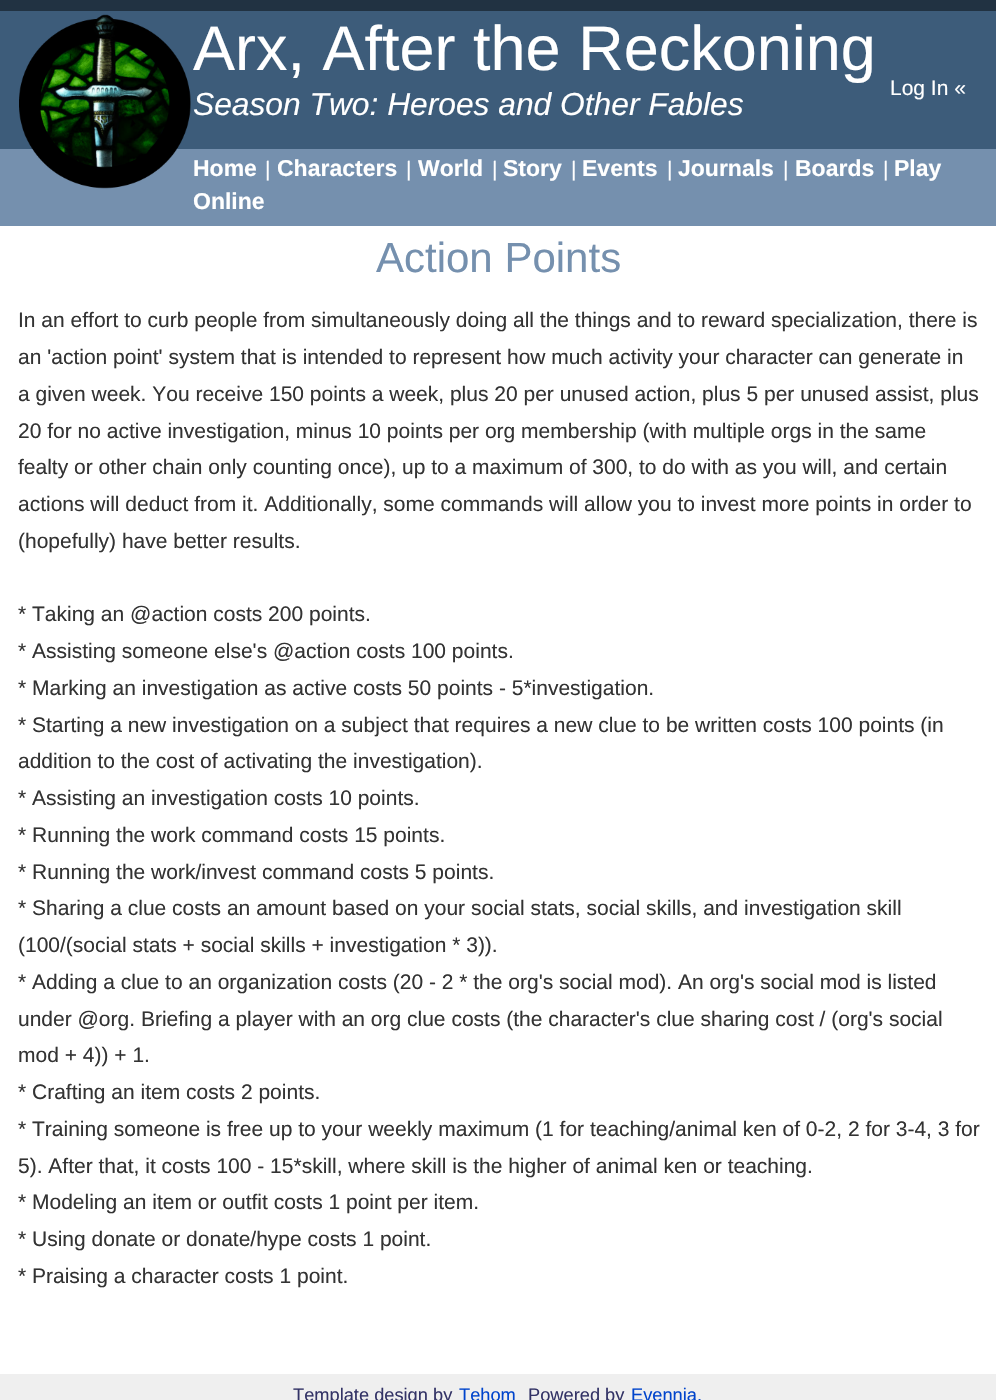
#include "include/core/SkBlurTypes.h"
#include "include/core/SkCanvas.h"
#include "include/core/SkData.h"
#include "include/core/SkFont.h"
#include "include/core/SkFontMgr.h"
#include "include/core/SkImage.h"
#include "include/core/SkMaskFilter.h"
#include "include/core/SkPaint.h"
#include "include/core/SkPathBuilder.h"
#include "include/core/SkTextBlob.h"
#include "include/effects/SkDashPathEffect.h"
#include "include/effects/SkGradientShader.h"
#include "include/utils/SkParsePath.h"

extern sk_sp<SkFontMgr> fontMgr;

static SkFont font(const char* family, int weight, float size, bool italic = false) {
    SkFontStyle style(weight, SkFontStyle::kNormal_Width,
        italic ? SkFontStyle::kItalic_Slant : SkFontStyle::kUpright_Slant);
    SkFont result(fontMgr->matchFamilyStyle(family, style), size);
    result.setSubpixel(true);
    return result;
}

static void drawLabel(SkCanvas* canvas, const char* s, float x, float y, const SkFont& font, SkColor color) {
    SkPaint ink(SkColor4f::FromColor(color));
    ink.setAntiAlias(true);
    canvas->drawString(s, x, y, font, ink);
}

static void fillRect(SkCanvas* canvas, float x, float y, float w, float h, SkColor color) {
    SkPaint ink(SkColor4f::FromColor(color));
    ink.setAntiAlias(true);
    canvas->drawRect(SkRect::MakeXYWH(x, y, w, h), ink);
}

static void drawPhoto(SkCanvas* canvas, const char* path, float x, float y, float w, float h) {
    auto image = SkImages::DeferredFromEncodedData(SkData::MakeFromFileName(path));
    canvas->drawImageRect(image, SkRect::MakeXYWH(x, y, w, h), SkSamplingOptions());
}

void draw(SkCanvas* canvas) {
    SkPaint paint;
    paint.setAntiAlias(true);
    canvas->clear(0xFFFFFFFF);
    fillRect(canvas, 0, 0, 996, 11, 0xFF213242);
    fillRect(canvas, 0, 11, 996, 138, 0xFF3D5C7A);
    fillRect(canvas, 0, 149, 996, 77, 0xFF7590AE);
    drawPhoto(canvas, "assets/img1.png", 19, 14, 172, 175);
    SkFont font1 = font("Liberation Sans", 400, 63);
    drawLabel(canvas, "Arx, After the Reckoning", 193, 70, font1, 0xFFFFFFFF);
    SkFont font2 = font("Liberation Sans", 400, 21);
    drawLabel(canvas, "Log In «", 890, 95, font2, 0xFFFFFFFF);
    SkFont font3 = font("Liberation Sans", 400, 31.75f, true);
    drawLabel(canvas, "Season Two: Heroes and Other Fables", 193, 115, font3, 0xFFFFFFFF);
    SkFont font4 = font("Liberation Sans", 700, 23);
    drawLabel(canvas, "Home", 193, 176, font4, 0xFFFFFFFF);
    drawLabel(canvas, "|", 265, 176, font2, 0xFFFFFFFF);
    drawLabel(canvas, "Characters", 277, 176, font4, 0xFFFFFFFF);
    drawLabel(canvas, "|", 406, 176, font2, 0xFFFFFFFF);
    drawLabel(canvas, "World", 418, 176, font4, 0xFFFFFFFF);
    drawLabel(canvas, "|", 492, 176, font2, 0xFFFFFFFF);
    drawLabel(canvas, "Story", 503, 176, font4, 0xFFFFFFFF);
    drawLabel(canvas, "|", 571, 176, font2, 0xFFFFFFFF);
    drawLabel(canvas, "Events", 582, 176, font4, 0xFFFFFFFF);
    drawLabel(canvas, "|", 667, 176, font2, 0xFFFFFFFF);
    drawLabel(canvas, "Journals", 678, 176, font4, 0xFFFFFFFF);
    drawLabel(canvas, "|", 783, 176, font2, 0xFFFFFFFF);
    drawLabel(canvas, "Boards", 795, 176, font4, 0xFFFFFFFF);
    drawLabel(canvas, "|", 883, 176, font2, 0xFFFFFFFF);
    drawLabel(canvas, "Play", 894, 176, font4, 0xFFFFFFFF);
    drawLabel(canvas, "Online", 193, 209, font4, 0xFFFFFFFF);
    SkFont font5 = font("Liberation Sans", 400, 42);
    drawLabel(canvas, "Action Points", 376, 272, font5, 0xFF7590AE);
    drawLabel(canvas, "In an effort to curb people from simultaneously doing all the things and to reward specialization, there is", 18, 327, font2, 0xFF333333);
    drawLabel(canvas, "an 'action point' system that is intended to represent how much activity your character can generate in", 18, 364, font2, 0xFF333333);
    drawLabel(canvas, "a given week. You receive 150 points a week, plus 20 per unused action, plus 5 per unused assist, plus", 18, 401, font2, 0xFF333333);
    drawLabel(canvas, "20 for no active investigation, minus 10 points per org membership (with multiple orgs in the same", 18, 438, font2, 0xFF333333);
    drawLabel(canvas, "fealty or other chain only counting once), up to a maximum of 300, to do with as you will, and certain", 18, 474, font2, 0xFF333333);
    drawLabel(canvas, "actions will deduct from it. Additionally, some commands will allow you to invest more points in order to", 18, 511, font2, 0xFF333333);
    drawLabel(canvas, "(hopefully) have better results.", 18, 548, font2, 0xFF333333);
    drawLabel(canvas, "* Taking an @action costs 200 points.", 18, 621, font2, 0xFF333333);
    drawLabel(canvas, "* Assisting someone else's @action costs 100 points.", 18, 658, font2, 0xFF333333);
    drawLabel(canvas, "* Marking an investigation as active costs 50 points - 5*investigation.", 18, 695, font2, 0xFF333333);
    drawLabel(canvas, "* Starting a new investigation on a subject that requires a new clue to be written costs 100 points (in", 18, 732, font2, 0xFF333333);
    drawLabel(canvas, "addition to the cost of activating the investigation).", 18, 768, font2, 0xFF333333);
    drawLabel(canvas, "* Assisting an investigation costs 10 points.", 18, 805, font2, 0xFF333333);
    drawLabel(canvas, "* Running the work command costs 15 points.", 18, 842, font2, 0xFF333333);
    drawLabel(canvas, "* Running the work/invest command costs 5 points.", 18, 879, font2, 0xFF333333);
    drawLabel(canvas, "* Sharing a clue costs an amount based on your social stats, social skills, and investigation skill", 18, 915, font2, 0xFF333333);
    drawLabel(canvas, "(100/(social stats + social skills + investigation * 3)).", 18, 952, font2, 0xFF333333);
    drawLabel(canvas, "* Adding a clue to an organization costs (20 - 2 * the org's social mod). An org's social mod is listed", 18, 989, font2, 0xFF333333);
    drawLabel(canvas, "under @org. Briefing a player with an org clue costs (the character's clue sharing cost / (org's social", 18, 1026, font2, 0xFF333333);
    drawLabel(canvas, "mod + 4)) + 1.", 18, 1062, font2, 0xFF333333);
    drawLabel(canvas, "* Crafting an item costs 2 points.", 18, 1099, font2, 0xFF333333);
    drawLabel(canvas, "* Training someone is free up to your weekly maximum (1 for teaching/animal ken of 0-2, 2 for 3-4, 3 for", 18, 1136, font2, 0xFF333333);
    drawLabel(canvas, "5). After that, it costs 100 - 15*skill, where skill is the higher of animal ken or teaching.", 18, 1173, font2, 0xFF333333);
    drawLabel(canvas, "* Modeling an item or outfit costs 1 point per item.", 18, 1209, font2, 0xFF333333);
    drawLabel(canvas, "* Using donate or donate/hype costs 1 point.", 18, 1246, font2, 0xFF333333);
    drawLabel(canvas, "* Praising a character costs 1 point.", 18, 1283, font2, 0xFF333333);
    fillRect(canvas, 0, 1374, 996, 26, 0xFFEFEFEF);
    SkFont font6 = font("Liberation Sans", 400, 18.25f);
    drawLabel(canvas, "Template design by", 293, 1401, font6, 0xFF333366);
    drawLabel(canvas, "Tehom", 459, 1401, font6, 0xFF0044CC);
    drawLabel(canvas, "Powered by", 528, 1401, font6, 0xFF333366);
    drawLabel(canvas, "Evennia.", 631, 1401, font6, 0xFF0044CC);
}
